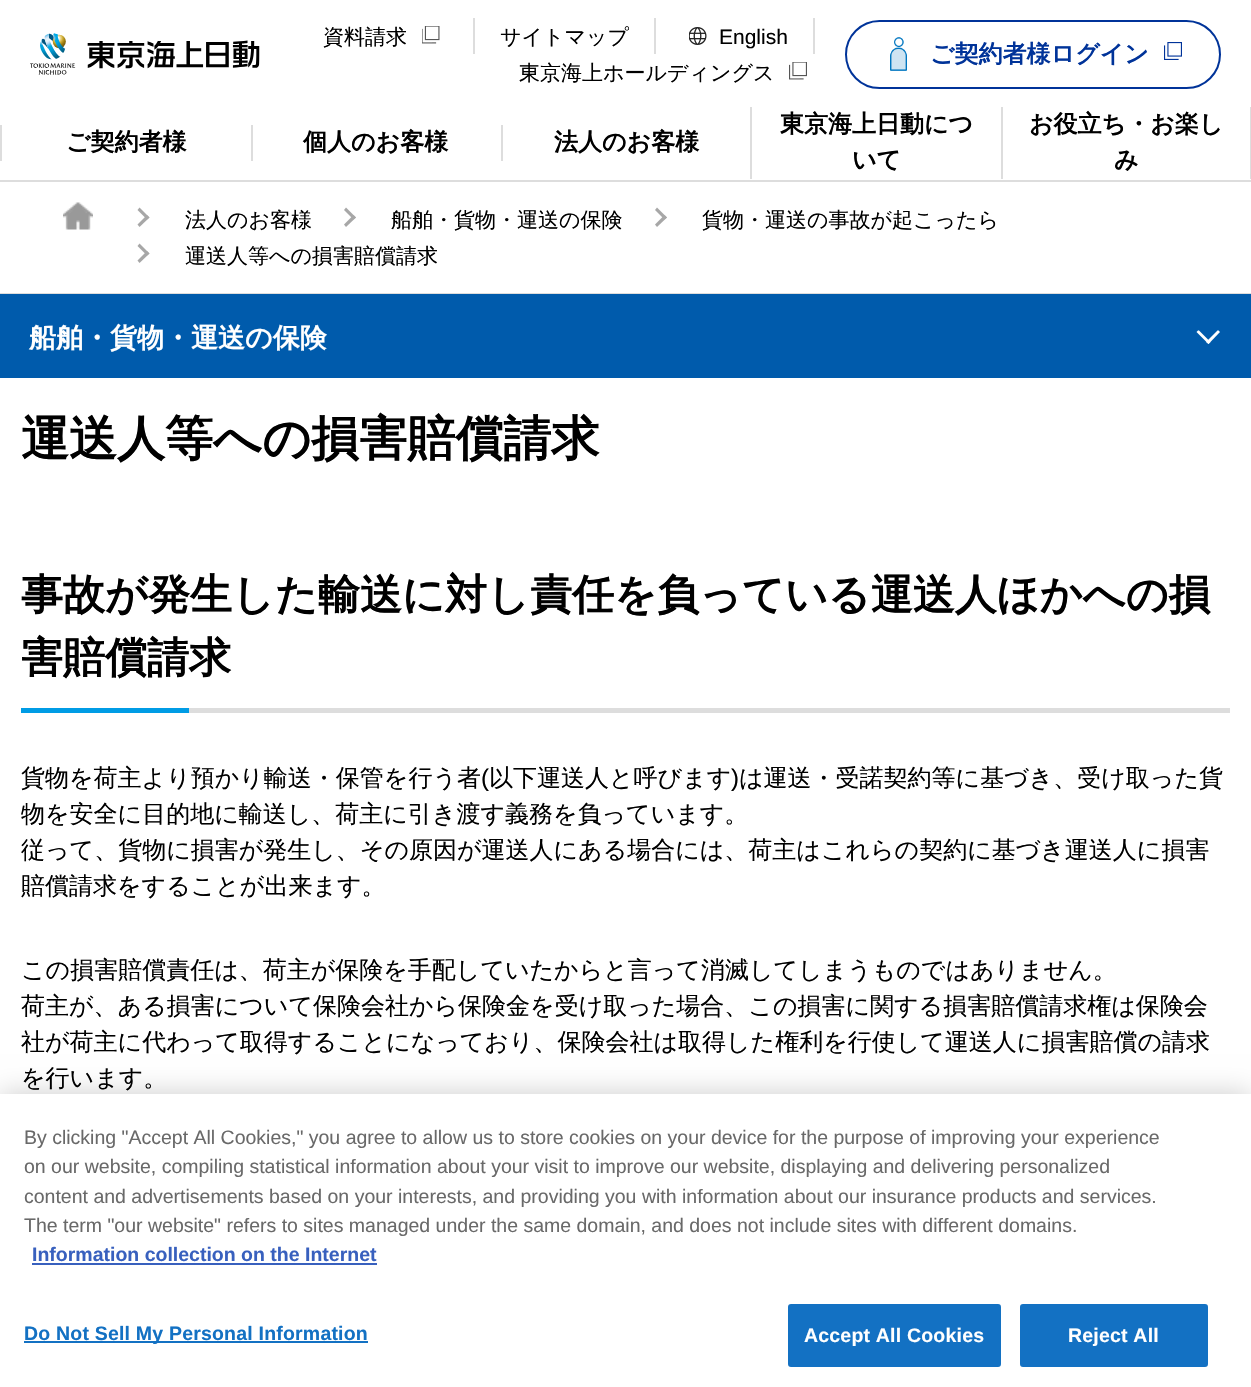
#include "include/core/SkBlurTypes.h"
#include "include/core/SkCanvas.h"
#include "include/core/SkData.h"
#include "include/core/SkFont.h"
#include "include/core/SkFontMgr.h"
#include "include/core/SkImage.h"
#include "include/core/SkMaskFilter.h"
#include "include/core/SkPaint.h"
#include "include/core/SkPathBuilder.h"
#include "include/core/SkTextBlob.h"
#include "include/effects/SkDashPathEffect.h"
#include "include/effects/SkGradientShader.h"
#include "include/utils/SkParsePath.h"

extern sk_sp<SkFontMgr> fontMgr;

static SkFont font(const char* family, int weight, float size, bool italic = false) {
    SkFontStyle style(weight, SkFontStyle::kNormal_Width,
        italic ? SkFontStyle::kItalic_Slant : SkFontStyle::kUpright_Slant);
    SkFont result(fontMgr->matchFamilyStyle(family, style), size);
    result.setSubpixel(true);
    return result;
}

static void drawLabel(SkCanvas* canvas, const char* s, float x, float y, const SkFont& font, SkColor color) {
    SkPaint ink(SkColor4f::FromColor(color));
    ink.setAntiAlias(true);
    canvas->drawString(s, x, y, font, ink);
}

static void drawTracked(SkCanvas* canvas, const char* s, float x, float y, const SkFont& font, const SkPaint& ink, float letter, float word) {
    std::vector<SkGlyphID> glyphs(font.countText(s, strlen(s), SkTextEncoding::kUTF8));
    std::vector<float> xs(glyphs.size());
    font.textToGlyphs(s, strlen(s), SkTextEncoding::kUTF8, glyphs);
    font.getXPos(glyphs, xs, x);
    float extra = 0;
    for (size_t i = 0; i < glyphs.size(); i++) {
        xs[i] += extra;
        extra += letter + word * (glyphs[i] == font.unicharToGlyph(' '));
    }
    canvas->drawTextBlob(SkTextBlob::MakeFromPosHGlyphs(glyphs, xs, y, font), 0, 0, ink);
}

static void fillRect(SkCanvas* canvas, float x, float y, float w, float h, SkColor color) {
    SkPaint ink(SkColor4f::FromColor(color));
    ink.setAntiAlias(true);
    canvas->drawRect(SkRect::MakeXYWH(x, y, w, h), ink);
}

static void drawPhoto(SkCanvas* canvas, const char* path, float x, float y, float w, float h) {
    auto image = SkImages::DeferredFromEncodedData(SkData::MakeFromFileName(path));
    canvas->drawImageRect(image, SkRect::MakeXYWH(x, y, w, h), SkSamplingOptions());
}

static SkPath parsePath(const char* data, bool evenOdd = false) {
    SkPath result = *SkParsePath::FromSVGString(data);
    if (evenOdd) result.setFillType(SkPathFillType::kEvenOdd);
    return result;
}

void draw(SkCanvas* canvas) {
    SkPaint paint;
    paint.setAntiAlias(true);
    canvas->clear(0xFFFFFFFF);
    drawPhoto(canvas, "assets/img1.png", 30, 33, 230, 42);
    fillRect(canvas, 473, 18, 2, 36, 0xFFDDDDDD);
    SkFont font1 = font("WenQuanYi Zen Hei", 500, 21);
    drawLabel(canvas, "資料請求", 323, 44, font1, 0xFF000000);
    drawPhoto(canvas, "assets/img2.png", 422, 26, 18, 18);
    fillRect(canvas, 654, 18, 2, 36, 0xFFDDDDDD);
    drawLabel(canvas, "サイトマップ", 500, 44, font1, 0xFF000000);
    fillRect(canvas, 813, 18, 2, 36, 0xFFDDDDDD);
    drawPhoto(canvas, "assets/img3.png", 689, 27, 18, 18);
    SkFont font2 = font("Liberation Sans", 400, 21);
    drawLabel(canvas, "English", 719, 44, font2, 0xFF000000);
    drawLabel(canvas, "東京海上ホールディングス", 519, 80, font1, 0xFF000000);
    drawPhoto(canvas, "assets/img4.png", 789, 62, 18, 18);
    paint.setStroke(true);
    paint.setStrokeWidth(2);
    paint.setColor(0xFF003399);
    canvas->drawRoundRect(SkRect::MakeXYWH(846, 21, 374, 67), 33.5f, 33.5f, paint);
    drawPhoto(canvas, "assets/img5.png", 890, 37, 17, 34);
    SkFont font3 = font("WenQuanYi Zen Hei", 700, 24);
    drawLabel(canvas, "ご契約者様ログイン", 930, 62, font3, 0xFF003399);
    drawPhoto(canvas, "assets/img6.png", 1164, 42, 18, 18);
    fillRect(canvas, 0, 180, 1251, 2, 0xFFDDDDDD);
    fillRect(canvas, 0, 125, 2, 36, 0xFFDDDDDD);
    drawLabel(canvas, "ご契約者様", 66, 150, font3, 0xFF000000);
    fillRect(canvas, 251, 125, 2, 36, 0xFFDDDDDD);
    drawLabel(canvas, "個人のお客様", 303, 150, font3, 0xFF000000);
    fillRect(canvas, 501, 125, 2, 36, 0xFFDDDDDD);
    drawLabel(canvas, "法人のお客様", 554, 150, font3, 0xFF000000);
    fillRect(canvas, 750, 107, 2, 72, 0xFFDDDDDD);
    drawLabel(canvas, "東京海上日動につ", 780, 132, font3, 0xFF000000);
    drawLabel(canvas, "いて", 852, 168, font3, 0xFF000000);
    fillRect(canvas, 1250, 107, 1, 72, 0xFFDDDDDD);
    fillRect(canvas, 1001, 107, 2, 72, 0xFFDDDDDD);
    drawLabel(canvas, "お役立ち・お楽し", 1029, 132, font3, 0xFF000000);
    drawLabel(canvas, "み", 1114, 168, font3, 0xFF000000);
    fillRect(canvas, 0, 293, 1251, 1, 0xFFDDDDDD);
    drawPhoto(canvas, "assets/img7.png", 63, 202, 30, 28);
    paint.setStroke(false);
    paint.setColor(0xFFA7A7A7);
    canvas->drawPath(parsePath("M139.5 207.5L149.5 217.5L147 219.5L137.5 210Z"), paint);
    canvas->drawPath(parsePath("M147 215L149.5 217.5L139.5 227L137.5 224.5Z"), paint);
    drawLabel(canvas, "法人のお客様", 185, 227, font1, 0xFF000000);
    canvas->drawPath(parsePath("M346 207.5L356 217.5L353.5 219.5L344 210Z"), paint);
    canvas->drawPath(parsePath("M353.5 215L356 217.5L346 227L344 224.5Z"), paint);
    drawLabel(canvas, "船舶・貨物・運送の保険", 391, 227, font1, 0xFF000000);
    canvas->drawPath(parsePath("M657 207.5L667 217.5L664.5 219.5L655 210Z"), paint);
    canvas->drawPath(parsePath("M664.5 215L667 217.5L657 227L655 224.5Z"), paint);
    drawLabel(canvas, "貨物・運送の事故が起こったら", 702, 227, font1, 0xFF000000);
    canvas->drawPath(parsePath("M139.5 243.5L149.5 253.5L147 255.5L137.5 246Z"), paint);
    canvas->drawPath(parsePath("M147 251L149.5 253.5L139.5 263L137.5 260.5Z"), paint);
    drawLabel(canvas, "運送人等への損害賠償請求", 185, 263, font1, 0xFF000000);
    fillRect(canvas, 0, 294, 1251, 84, 0xFF005BAC);
    SkFont font4 = font("WenQuanYi Zen Hei", 700, 27);
    drawLabel(canvas, "船舶・貨物・運送の保険", 29, 347, font4, 0xFFFFFFFF);
    paint.setColor(0xFFFFFFFF);
    canvas->drawPath(parsePath("M1218 330L1220 332L1208.5 344L1206 342Z"), paint);
    canvas->drawPath(parsePath("M1198.5 330L1210.5 342L1208.5 344L1196.5 332Z"), paint);
    paint.setColor(0xFF005BAC);
    canvas->drawPath(parsePath("M1198.5 330.5L1196.5 328.5L1208 317L1210.5 319Z"), paint);
    canvas->drawPath(parsePath("M1218 330.5L1206 319L1208 317L1220 328.5Z"), paint);
    SkFont font5 = font("WenQuanYi Zen Hei", 700, 48);
    drawLabel(canvas, "運送人等への損害賠償請求", 21, 455, font5, 0xFF000000);
    SkFont font6 = font("WenQuanYi Zen Hei", 700, 42);
    drawLabel(canvas, "事故が発生した輸送に対し責任を負っている運送人ほかへの損", 21, 609, font6, 0xFF000000);
    drawLabel(canvas, "害賠償請求", 21, 672, font6, 0xFF000000);
    fillRect(canvas, 21, 708, 168, 5, 0xFF009CE5);
    fillRect(canvas, 189, 708, 1041, 5, 0xFFDDDDDD);
    SkFont font7 = font("WenQuanYi Zen Hei", 500, 24);
    drawLabel(canvas, "貨物を荷主より預かり輸送・保管を行う者", 21, 786, font7, 0xFF000000);
    SkFont font8 = font("Liberation Sans", 400, 24);
    drawLabel(canvas, "(", 481, 786, font8, 0xFF000000);
    drawLabel(canvas, "以下運送人と呼びます", 489, 786, font7, 0xFF000000);
    drawLabel(canvas, ")", 731, 786, font8, 0xFF000000);
    drawLabel(canvas, "は運送・受諾契約等に基づき、受け取った貨", 739, 786, font7, 0xFF000000);
    drawLabel(canvas, "物を安全に目的地に輸送し、荷主に引き渡す義務を負っています。", 21, 822, font7, 0xFF000000);
    drawLabel(canvas, "従って、貨物に損害が発生し、その原因が運送人にある場合には、荷主はこれらの契約に基づき運送人に損害", 21, 858, font7, 0xFF000000);
    drawLabel(canvas, "賠償請求をすることが出来ます。", 21, 894, font7, 0xFF000000);
    drawLabel(canvas, "この損害賠償責任は、荷主が保険を手配していたからと言って消滅してしまうものではありません。", 21, 978, font7, 0xFF000000);
    drawLabel(canvas, "荷主が、ある損害について保険会社から保険金を受け取った場合、この損害に関する損害賠償請求権は保険会", 21, 1014, font7, 0xFF000000);
    drawLabel(canvas, "社が荷主に代わって取得することになっており、保険会社は取得した権利を行使して運送人に損害賠償の請求", 21, 1050, font7, 0xFF000000);
    drawLabel(canvas, "を行います。", 21, 1086, font7, 0xFF000000);
    paint.setColor(0x33000000);
    paint.setMaskFilter(SkMaskFilter::MakeBlur(kNormal_SkBlurStyle, 13.5f));
    canvas->drawRect(SkRect::MakeXYWH(0, 1094, 1251, 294), paint);
    paint.setMaskFilter(nullptr);
    fillRect(canvas, 0, 1094, 1251, 293, 0xFFFFFFFF);
    SkFont font9 = font("Liberation Sans", 400, 19.5f);
    drawLabel(canvas, "By clicking \"Accept All Cookies,\" you agree to allow us to store cookies on your device for the purpose of improving your experience", 24, 1144, font9, 0xFF696969);
    drawLabel(canvas, "on our website, compiling statistical information about your visit to improve our website, displaying and delivering personalized", 24, 1173, font9, 0xFF696969);
    drawLabel(canvas, "content and advertisements based on your interests, and providing you with information about our insurance products and services.", 24, 1203, font9, 0xFF696969);
    drawLabel(canvas, "The term \"our website\" refers to sites managed under the same domain, and does not include sites with different domains.", 24, 1232, font9, 0xFF696969);
    SkFont font10 = font("Liberation Sans", 700, 19.5f);
    drawLabel(canvas, "Information collection on the Internet", 32, 1261, font10, 0xFF3860BE);
    fillRect(canvas, 32, 1263, 345, 2, 0xFF3860BE);
    fillRect(canvas, 24, 1341, 344, 2, 0xFF1371C3);
    paint.setColor(0xFF1371C3);
    drawTracked(canvas, "Do Not Sell My Personal Information", 24, 1340, font10, paint, 0.2f, 0);
    canvas->drawRoundRect(SkRect::MakeXYWH(789, 1305, 211, 61), 2, 2, paint);
    paint.setStroke(true);
    canvas->drawRoundRect(SkRect::MakeXYWH(789, 1305, 211, 61), 2, 2, paint);
    paint.setStroke(false);
    paint.setColor(0xFFFFFFFF);
    drawTracked(canvas, "Accept All Cookies", 804, 1342, font10, paint, 0.2f, 0);
    paint.setColor(0xFF1371C3);
    canvas->drawRoundRect(SkRect::MakeXYWH(1021, 1305, 186, 61), 2, 2, paint);
    paint.setStroke(true);
    canvas->drawRoundRect(SkRect::MakeXYWH(1021, 1305, 186, 61), 2, 2, paint);
    paint.setStroke(false);
    paint.setColor(0xFFFFFFFF);
    drawTracked(canvas, "Reject All", 1068, 1342, font10, paint, 0.2f, 0);
}
